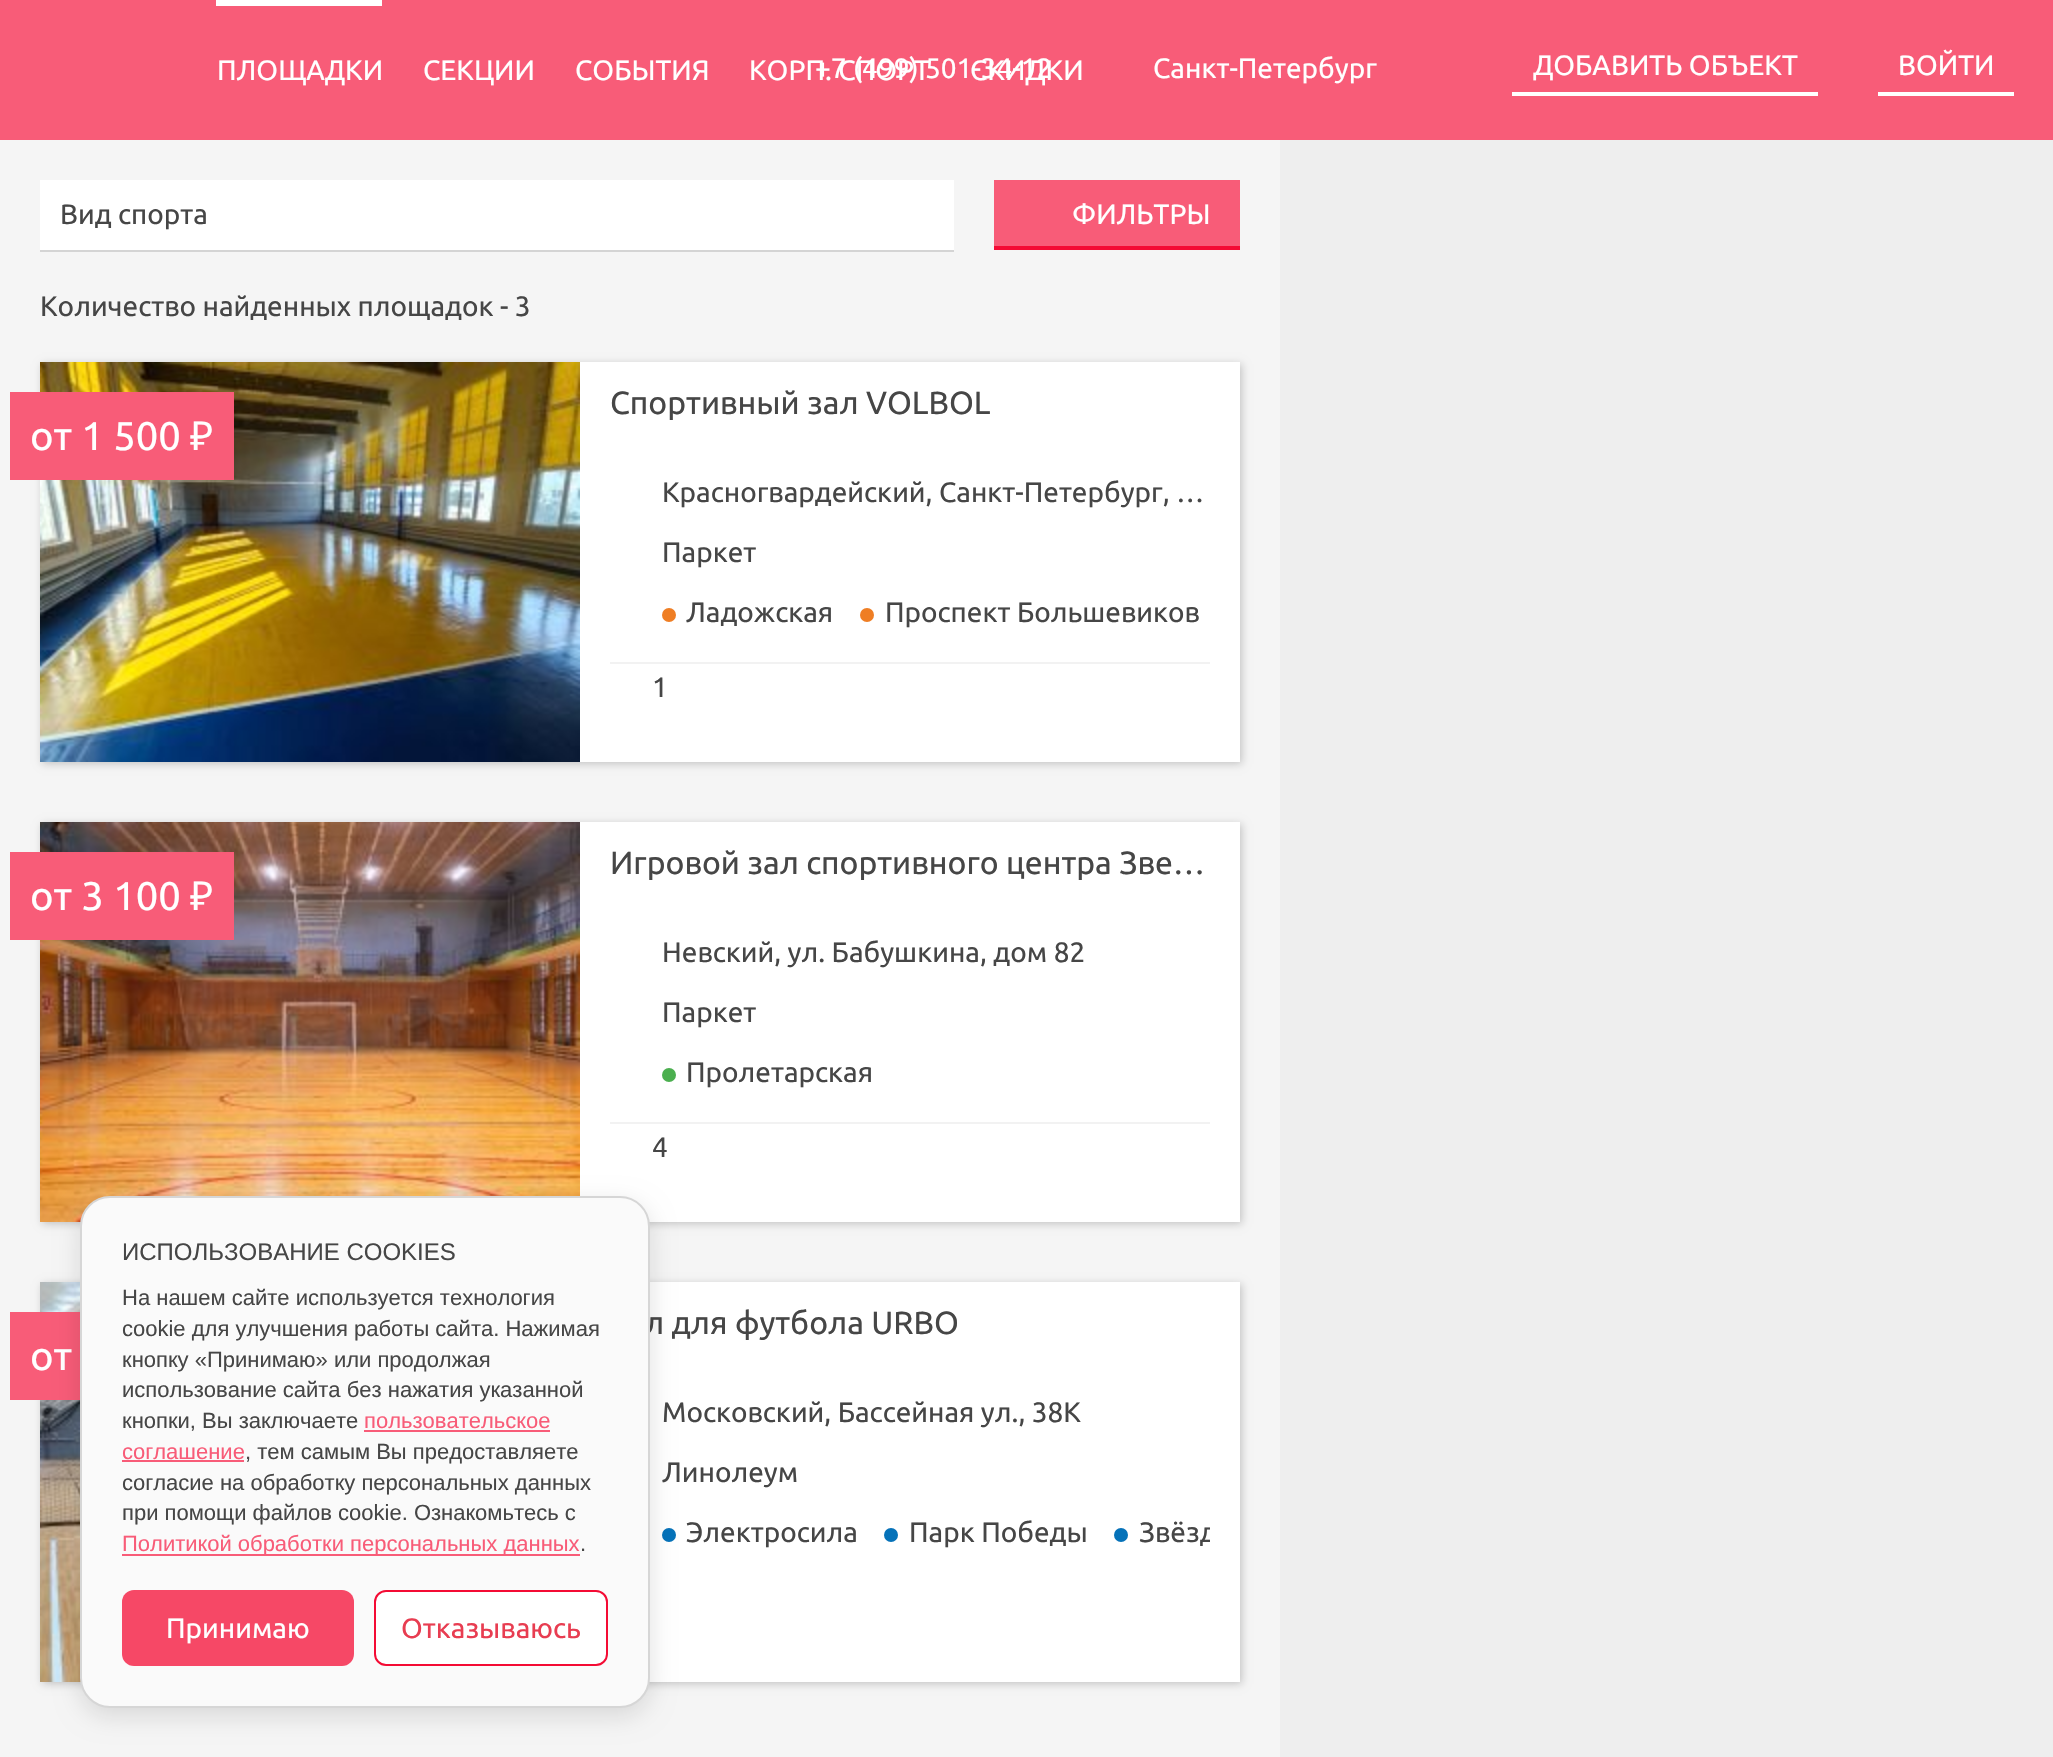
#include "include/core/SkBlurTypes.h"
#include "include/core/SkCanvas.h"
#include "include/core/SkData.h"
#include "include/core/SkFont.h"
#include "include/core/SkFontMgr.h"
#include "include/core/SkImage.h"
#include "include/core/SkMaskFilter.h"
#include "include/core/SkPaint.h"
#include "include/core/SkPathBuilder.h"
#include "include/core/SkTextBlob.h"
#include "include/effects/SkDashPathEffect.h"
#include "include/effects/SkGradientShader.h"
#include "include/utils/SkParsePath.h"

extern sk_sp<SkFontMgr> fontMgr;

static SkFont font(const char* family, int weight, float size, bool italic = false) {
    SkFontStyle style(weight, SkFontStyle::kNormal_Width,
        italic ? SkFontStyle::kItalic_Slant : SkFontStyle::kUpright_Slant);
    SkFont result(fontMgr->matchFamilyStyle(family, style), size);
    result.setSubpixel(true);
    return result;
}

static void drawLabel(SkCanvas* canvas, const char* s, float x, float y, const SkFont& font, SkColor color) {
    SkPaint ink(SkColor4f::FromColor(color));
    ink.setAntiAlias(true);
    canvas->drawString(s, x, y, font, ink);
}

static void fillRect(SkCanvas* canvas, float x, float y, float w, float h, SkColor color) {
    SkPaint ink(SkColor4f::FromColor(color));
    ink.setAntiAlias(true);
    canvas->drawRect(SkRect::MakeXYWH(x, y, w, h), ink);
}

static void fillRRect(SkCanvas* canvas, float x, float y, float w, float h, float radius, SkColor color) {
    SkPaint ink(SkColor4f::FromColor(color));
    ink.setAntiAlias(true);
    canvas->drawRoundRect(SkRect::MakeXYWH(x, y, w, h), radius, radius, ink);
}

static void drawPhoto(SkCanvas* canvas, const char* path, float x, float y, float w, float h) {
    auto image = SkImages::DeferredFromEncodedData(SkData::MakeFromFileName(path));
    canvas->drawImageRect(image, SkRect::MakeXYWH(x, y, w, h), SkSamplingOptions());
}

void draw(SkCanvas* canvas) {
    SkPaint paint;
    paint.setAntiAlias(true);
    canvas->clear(0xFFF5F5F5);
    fillRect(canvas, 0, 0, 2053, 140, 0xFFF85C78);
    fillRect(canvas, 216, 0, 166, 6, 0xFFFFFFFF);
    SkFont font1 = font("Ubuntu", 400, 28);
    drawLabel(canvas, "ПЛОЩАДКИ", 217, 80, font1, 0xFFFFFFFF);
    drawLabel(canvas, "СЕКЦИИ", 423, 80, font1, 0xFFFFFFFF);
    drawLabel(canvas, "СОБЫТИЯ", 575, 80, font1, 0xFFFFFFFF);
    drawLabel(canvas, "КОРП. СПОРТ", 749, 80, font1, 0xFFFFFFFF);
    drawLabel(canvas, "СКИДКИ", 970, 80, font1, 0xFFFFFFFF);
    drawLabel(canvas, "+7 (499) 501-34-12", 815, 78, font1, 0xFFFFFFFF);
    drawLabel(canvas, "Санкт-Петербург", 1153, 78, font1, 0xFFFFFFFF);
    fillRect(canvas, 1512, 92, 306, 4, 0xFFFFFFFF);
    drawLabel(canvas, "ДОБАВИТЬ ОБЪЕКТ", 1533, 75, font1, 0xFFFFFFFF);
    fillRect(canvas, 1878, 92, 136, 4, 0xFFFFFFFF);
    drawLabel(canvas, "ВОЙТИ", 1898, 75, font1, 0xFFFFFFFF);
    fillRect(canvas, 40, 250, 914, 2, 0xFFD4D4D4);
    fillRect(canvas, 40, 180, 914, 70, 0xFFFFFFFF);
    drawLabel(canvas, "Вид спорта", 60, 224, font1, 0xFF464646);
    fillRect(canvas, 994, 180, 246, 66, 0xFFF85C78);
    fillRect(canvas, 994, 246, 246, 4, 0xFFF40B34);
    drawLabel(canvas, "ФИЛЬТРЫ", 1072, 224, font1, 0xFFFFFFFF);
    drawLabel(canvas, "Количество найденных площадок - 3", 40, 316, font1, 0xFF464646);
    paint.setColor(0x33000000);
    paint.setMaskFilter(SkMaskFilter::MakeBlur(kNormal_SkBlurStyle, 4));
    canvas->drawRect(SkRect::MakeXYWH(42, 364, 1200, 400), paint);
    paint.setMaskFilter(nullptr);
    fillRect(canvas, 580, 362, 660, 400, 0xFFFFFFFF);
    SkFont font2 = font("Ubuntu", 400, 32);
    drawLabel(canvas, "Спортивный зал VOLBOL", 610, 414, font2, 0xFF464646);
    drawPhoto(canvas, "assets/img1.png", 40, 362, 540, 400);
    fillRect(canvas, 10, 392, 224, 88, 0xFFF85C78);
    SkFont font3 = font("Ubuntu", 400, 40);
    drawLabel(canvas, "от 1 500", 30, 450, font3, 0xFFFFFFFF);
    SkFont font4 = font("Noto Sans", 400, 40);
    drawLabel(canvas, "₽", 190, 450, font4, 0xFFFFFFFF);
    drawLabel(canvas, "Красногвардейский, Санкт-Петербург, …", 662, 502, font1, 0xFF464646);
    drawLabel(canvas, "Паркет", 662, 562, font1, 0xFF464646);
    paint.setColor(0xFFEF7E24);
    canvas->drawCircle(669, 615, 7, paint);
    drawLabel(canvas, "Ладожская", 686, 622, font1, 0xFF464646);
    canvas->drawCircle(867, 615, 7, paint);
    drawLabel(canvas, "Проспект Большевиков", 885, 622, font1, 0xFF464646);
    fillRect(canvas, 610, 662, 600, 2, 0xFFF2F2F2);
    drawLabel(canvas, "1", 652, 697, font1, 0xFF464646);
    paint.setColor(0x33000000);
    paint.setMaskFilter(SkMaskFilter::MakeBlur(kNormal_SkBlurStyle, 4));
    canvas->drawRect(SkRect::MakeXYWH(42, 824, 1200, 400), paint);
    paint.setMaskFilter(nullptr);
    fillRect(canvas, 580, 822, 660, 400, 0xFFFFFFFF);
    drawLabel(canvas, "Игровой зал спортивного центра Зве…", 610, 874, font2, 0xFF464646);
    drawPhoto(canvas, "assets/img2.png", 40, 822, 540, 400);
    fillRect(canvas, 10, 852, 224, 88, 0xFFF85C78);
    drawLabel(canvas, "от 3 100", 30, 910, font3, 0xFFFFFFFF);
    drawLabel(canvas, "₽", 190, 910, font4, 0xFFFFFFFF);
    drawLabel(canvas, "Невский, ул. Бабушкина, дом 82", 662, 962, font1, 0xFF464646);
    drawLabel(canvas, "Паркет", 662, 1022, font1, 0xFF464646);
    paint.setColor(0xFF4BAF4F);
    canvas->drawCircle(669, 1075, 7, paint);
    drawLabel(canvas, "Пролетарская", 686, 1082, font1, 0xFF464646);
    fillRect(canvas, 610, 1122, 600, 2, 0xFFF2F2F2);
    drawLabel(canvas, "4", 652, 1157, font1, 0xFF464646);
    paint.setColor(0x33000000);
    paint.setMaskFilter(SkMaskFilter::MakeBlur(kNormal_SkBlurStyle, 4));
    canvas->drawRect(SkRect::MakeXYWH(42, 1284, 1200, 400), paint);
    paint.setMaskFilter(nullptr);
    fillRect(canvas, 649, 1282, 591, 400, 0xFFFFFFFF);
    drawLabel(canvas, "л для футбола URBO", 645, 1334, font2, 0xFF464646);
    drawPhoto(canvas, "assets/img3.png", 40, 1282, 41, 400);
    fillRect(canvas, 10, 1312, 70, 88, 0xFFF85C78);
    drawLabel(canvas, "от", 30, 1370, font3, 0xFFFFFFFF);
    drawLabel(canvas, "Московский, Бассейная ул., 38К", 662, 1422, font1, 0xFF464646);
    drawLabel(canvas, "Линолеум", 662, 1482, font1, 0xFF464646);
    paint.setColor(0xFF0572B9);
    canvas->drawCircle(669, 1535, 7, paint);
    drawLabel(canvas, "Электросила", 686, 1542, font1, 0xFF464646);
    canvas->drawCircle(891, 1535, 7, paint);
    drawLabel(canvas, "Парк Победы", 909, 1542, font1, 0xFF464646);
    canvas->drawCircle(1121, 1535, 7, paint);
    canvas->save();
    canvas->clipRect(SkRect::MakeXYWH(662, 1508, 548, 80));
    drawLabel(canvas, "Звёзд", 1139, 1542, font1, 0xFF464646);
    canvas->restore();
    fillRect(canvas, 1280, 140, 773, 1617, 0xFFEEEEEE);
    paint.setColor(0x1F000000);
    paint.setMaskFilter(SkMaskFilter::MakeBlur(kNormal_SkBlurStyle, 12));
    canvas->drawRoundRect(SkRect::MakeXYWH(80, 1204, 570, 512), 30, 30, paint);
    paint.setMaskFilter(nullptr);
    paint.setColor(0xFFFAFAFA);
    canvas->drawRoundRect(SkRect::MakeXYWH(81, 1197, 568, 510), 29, 29, paint);
    paint.setStroke(true);
    paint.setStrokeWidth(2);
    paint.setColor(0xFFD6D6D6);
    canvas->drawRoundRect(SkRect::MakeXYWH(81, 1197, 568, 510), 29, 29, paint);
    SkFont font5 = font("Liberation Sans", 400, 24);
    drawLabel(canvas, "ИСПОЛЬЗОВАНИЕ COOKIES", 122, 1260, font5, 0xFF464646);
    SkFont font6 = font("Liberation Sans", 400, 22);
    drawLabel(canvas, "На нашем сайте используется технология", 122, 1305, font6, 0xFF464646);
    drawLabel(canvas, "cookie для улучшения работы сайта. Нажимая", 122, 1336, font6, 0xFF464646);
    drawLabel(canvas, "кнопку «Принимаю» или продолжая", 122, 1367, font6, 0xFF464646);
    drawLabel(canvas, "использование сайта без нажатия указанной", 122, 1397, font6, 0xFF464646);
    drawLabel(canvas, "кнопки, Вы заключаете", 122, 1428, font6, 0xFF464646);
    drawLabel(canvas, "пользовательское", 364, 1428, font6, 0xFFF85C78);
    fillRect(canvas, 364, 1430, 186, 2, 0xFFF85C78);
    drawLabel(canvas, "соглашение", 122, 1459, font6, 0xFFF85C78);
    fillRect(canvas, 122, 1460, 122, 2, 0xFFF85C78);
    drawLabel(canvas, ", тем самым Вы предоставляете", 245, 1459, font6, 0xFF464646);
    drawLabel(canvas, "согласие на обработку персональных данных", 122, 1490, font6, 0xFF464646);
    drawLabel(canvas, "при помощи файлов cookie. Ознакомьтесь с", 122, 1520, font6, 0xFF464646);
    fillRect(canvas, 122, 1554, 458, 2, 0xFFF85C78);
    drawLabel(canvas, "Политикой обработки персональных данных", 122, 1551, font6, 0xFFF85C78);
    drawLabel(canvas, ".", 580, 1551, font6, 0xFF464646);
    fillRRect(canvas, 122, 1590, 232, 76, 12, 0xFFF64866);
    drawLabel(canvas, "Принимаю", 166, 1638, font1, 0xFFFFFFFF);
    paint.setStroke(false);
    paint.setColor(0xFFFFFFFF);
    canvas->drawRoundRect(SkRect::MakeXYWH(375, 1591, 232, 74), 11, 11, paint);
    paint.setStroke(true);
    paint.setColor(0xFFF40B34);
    canvas->drawRoundRect(SkRect::MakeXYWH(375, 1591, 232, 74), 11, 11, paint);
    drawLabel(canvas, "Отказываюсь", 401, 1638, font1, 0xFFE83D51);
}
